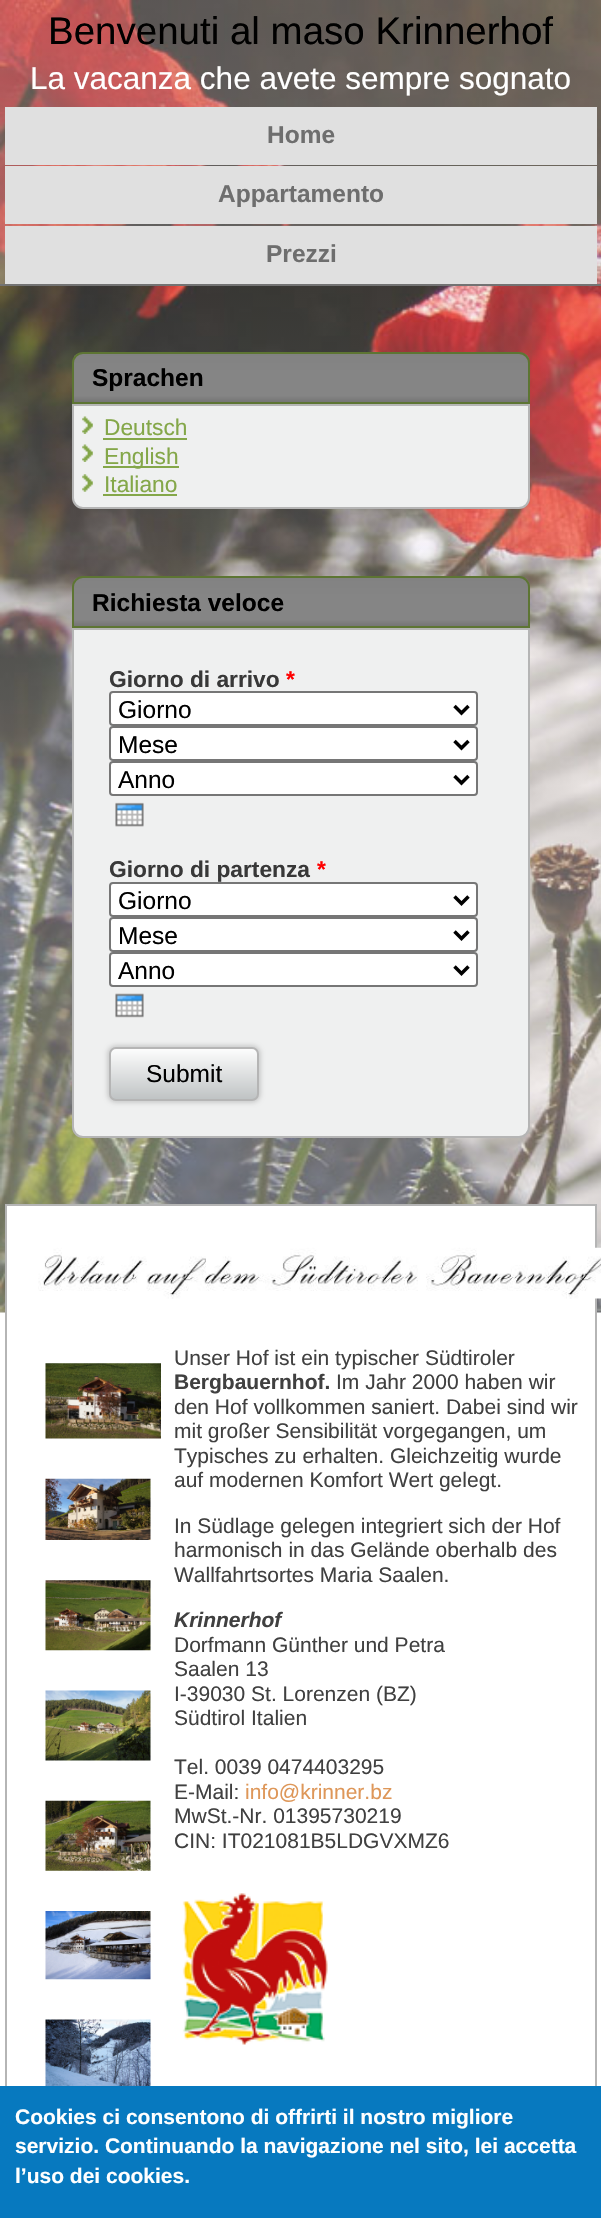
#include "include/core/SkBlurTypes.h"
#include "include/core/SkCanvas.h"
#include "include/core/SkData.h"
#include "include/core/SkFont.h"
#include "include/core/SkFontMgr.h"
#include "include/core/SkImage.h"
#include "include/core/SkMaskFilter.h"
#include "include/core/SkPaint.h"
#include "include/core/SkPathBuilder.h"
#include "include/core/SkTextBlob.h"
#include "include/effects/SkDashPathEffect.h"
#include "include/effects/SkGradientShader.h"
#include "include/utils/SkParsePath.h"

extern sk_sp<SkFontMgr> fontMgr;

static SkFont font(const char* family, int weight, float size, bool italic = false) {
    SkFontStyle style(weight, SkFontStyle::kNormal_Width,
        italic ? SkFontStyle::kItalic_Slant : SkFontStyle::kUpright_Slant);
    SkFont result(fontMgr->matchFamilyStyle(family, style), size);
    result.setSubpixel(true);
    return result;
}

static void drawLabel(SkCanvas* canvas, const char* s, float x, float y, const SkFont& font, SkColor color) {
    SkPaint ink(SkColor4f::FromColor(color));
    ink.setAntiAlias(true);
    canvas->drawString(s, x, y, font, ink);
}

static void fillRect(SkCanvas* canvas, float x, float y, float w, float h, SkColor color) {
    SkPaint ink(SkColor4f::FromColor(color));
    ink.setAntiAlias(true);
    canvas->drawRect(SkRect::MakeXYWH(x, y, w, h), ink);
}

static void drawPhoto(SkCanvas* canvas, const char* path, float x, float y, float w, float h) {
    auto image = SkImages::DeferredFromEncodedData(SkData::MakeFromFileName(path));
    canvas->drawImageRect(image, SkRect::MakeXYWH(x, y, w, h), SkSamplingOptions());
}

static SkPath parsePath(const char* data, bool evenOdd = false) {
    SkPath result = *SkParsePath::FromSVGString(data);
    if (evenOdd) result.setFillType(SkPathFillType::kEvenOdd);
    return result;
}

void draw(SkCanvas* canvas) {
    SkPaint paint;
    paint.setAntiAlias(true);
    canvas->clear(0xFFFFFFFF);
    drawPhoto(canvas, "assets/img1.png", 0, 0, 601, 1313);
    fillRect(canvas, 0, 0, 601, 284, 0x4DC6C6C6);
    SkFont font1 = font("Liberation Sans", 400, 38.5f);
    drawLabel(canvas, "Benvenuti al maso Krinnerhof", 48, 44, font1, 0xFF000000);
    SkFont font2 = font("Liberation Sans", 400, 31.5f);
    drawLabel(canvas, "La vacanza che avete sempre sognato", 30, 89, font2, 0xFFFFFFFF);
    fillRect(canvas, 0, 284, 601, 2, 0xFF737373);
    fillRect(canvas, 5, 107, 592, 58, 0xFFE0E0E0);
    SkFont font3 = font("Liberation Sans", 700, 24.5f);
    drawLabel(canvas, "Home", 267, 143, font3, 0xFF6E6E6E);
    fillRect(canvas, 5, 166, 592, 58, 0xFFE0E0E0);
    drawLabel(canvas, "Appartamento", 218, 202, font3, 0xFF6E6E6E);
    fillRect(canvas, 5, 226, 592, 58, 0xFFE0E0E0);
    drawLabel(canvas, "Prezzi", 266, 262, font3, 0xFF6E6E6E);
    canvas->save();
    canvas->clipPath(parsePath("M83 352H519C525 352 530 357 530 363V404H72V363C72 357 77 352 83 352Z"), true);
    {
        const SkColor colors[] = {0xFF828282, 0xFF858585, 0xFF858585, 0xFF808080, 0xFF737373};
        const float stops[] = {0, 0.4f, 0.85f, 0.89f, 1};
        const SkPoint ends[] = {{301, 353}, {301, 403}};
        paint.setShader(SkGradientShader::MakeLinear(ends, colors, stops, 5, SkTileMode::kClamp));
        paint.setAlpha(255);
    }
    canvas->drawRect(SkRect::MakeXYWH(74, 354, 455, 48), paint);
    canvas->restore();
    paint.setStroke(true);
    paint.setStrokeWidth(2);
    paint.setShader(nullptr);
    paint.setColor(0xFF5D7533);
    canvas->drawPath(parsePath("M83 353H519C524.5 353 529 357.5 529 363V403H73V363C73 357.5 77.5 353 83 353Z"), paint);
    drawLabel(canvas, "Sprachen", 92, 386, font3, 0xFF000000);
    paint.setStroke(false);
    paint.setColor(0xFFEFF0F0);
    canvas->drawPath(parsePath("M73 405H529V498C529 503.5 524.5 508 519 508H83C77.5 508 73 503.5 73 498Z"), paint);
    paint.setStroke(true);
    paint.setColor(0xFFB5B5B5);
    canvas->drawPath(parsePath("M73 405H529V498C529 503.5 524.5 508 519 508H83C77.5 508 73 503.5 73 498Z"), paint);
    drawPhoto(canvas, "assets/img2.png", 82, 416, 11, 18);
    SkFont font4 = font("Liberation Sans", 400, 22.75f);
    drawLabel(canvas, "Deutsch", 104, 435, font4, 0xFF84A749);
    fillRect(canvas, 103, 438, 84, 2, 0xFF84A749);
    drawPhoto(canvas, "assets/img2.png", 82, 444, 11, 18);
    fillRect(canvas, 103, 466, 76, 2, 0xFF84A749);
    drawLabel(canvas, "English", 104, 464, font4, 0xFF84A749);
    drawPhoto(canvas, "assets/img3.png", 82, 474, 11, 18);
    drawLabel(canvas, "Italiano", 104, 492, font4, 0xFF84A749);
    fillRect(canvas, 103, 494, 74, 2, 0xFF84A749);
    canvas->save();
    canvas->clipPath(parsePath("M83 576H519C525 576 530 581 530 587V628H72V587C72 581 77 576 83 576Z"), true);
    paint.setStroke(false);
    {
        const SkColor colors[] = {0xFF828282, 0xFF858585, 0xFF858585, 0xFF808080, 0xFF737373};
        const float stops[] = {0, 0.4f, 0.85f, 0.89f, 1};
        const SkPoint ends[] = {{301, 578}, {301, 627}};
        paint.setShader(SkGradientShader::MakeLinear(ends, colors, stops, 5, SkTileMode::kClamp));
        paint.setAlpha(255);
    }
    canvas->drawRect(SkRect::MakeXYWH(74, 578, 455, 48), paint);
    canvas->restore();
    paint.setStroke(true);
    paint.setShader(nullptr);
    paint.setColor(0xFF5D7533);
    canvas->drawPath(parsePath("M83 577H519C524.5 577 529 581.5 529 587V627H73V587C73 581.5 77.5 577 83 577Z"), paint);
    drawLabel(canvas, "Richiesta veloce", 92, 611, font3, 0xFF000000);
    paint.setStroke(false);
    paint.setColor(0xFFEFF0F0);
    canvas->drawPath(parsePath("M73 629H529V1127C529 1132.5 524.5 1137 519 1137H83C77.5 1137 73 1132.5 73 1127Z"), paint);
    paint.setStroke(true);
    paint.setColor(0xFFB5B5B5);
    canvas->drawPath(parsePath("M73 629H529V1127C529 1132.5 524.5 1137 519 1137H83C77.5 1137 73 1132.5 73 1127Z"), paint);
    SkFont font5 = font("Liberation Sans", 700, 22.75f);
    drawLabel(canvas, "Giorno di arrivo", 109, 687, font5, 0xFF383838);
    drawLabel(canvas, "*", 286, 687, font5, 0xFFFF0000);
    paint.setStroke(false);
    paint.setColor(0xFFFFFFFF);
    canvas->drawRoundRect(SkRect::MakeXYWH(110, 692, 367, 33), 3, 3, paint);
    paint.setStroke(true);
    paint.setColor(0xFF767676);
    canvas->drawRoundRect(SkRect::MakeXYWH(110, 692, 367, 33), 3, 3, paint);
    paint.setStrokeWidth(3.5f);
    paint.setColor(0xFF000000);
    canvas->drawPath(parsePath("M454.5 706L461.5 713L468.5 706"), paint);
    SkFont font6 = font("Liberation Sans", 400, 24.5f);
    drawLabel(canvas, "Giorno", 118, 718, font6, 0xFF000000);
    paint.setStroke(false);
    paint.setColor(0xFFFFFFFF);
    canvas->drawRoundRect(SkRect::MakeXYWH(110, 727, 367, 33), 3, 3, paint);
    paint.setStroke(true);
    paint.setStrokeWidth(2);
    paint.setColor(0xFF767676);
    canvas->drawRoundRect(SkRect::MakeXYWH(110, 727, 367, 33), 3, 3, paint);
    paint.setStrokeWidth(3.5f);
    paint.setColor(0xFF000000);
    canvas->drawPath(parsePath("M454.5 741L461.5 748L468.5 741"), paint);
    drawLabel(canvas, "Mese", 118, 753, font6, 0xFF000000);
    paint.setStroke(false);
    paint.setColor(0xFFFFFFFF);
    canvas->drawRoundRect(SkRect::MakeXYWH(110, 762, 367, 33), 3, 3, paint);
    paint.setStroke(true);
    paint.setStrokeWidth(2);
    paint.setColor(0xFF767676);
    canvas->drawRoundRect(SkRect::MakeXYWH(110, 762, 367, 33), 3, 3, paint);
    paint.setStrokeWidth(3.5f);
    paint.setColor(0xFF000000);
    canvas->drawPath(parsePath("M454.5 776L461.5 783L468.5 776"), paint);
    drawLabel(canvas, "Anno", 118, 788, font6, 0xFF000000);
    drawPhoto(canvas, "assets/img4.png", 115, 802, 29, 25);
    drawLabel(canvas, "Giorno di partenza", 109, 877, font5, 0xFF383838);
    drawLabel(canvas, "*", 317, 877, font5, 0xFFFF0000);
    paint.setStroke(false);
    paint.setColor(0xFFFFFFFF);
    canvas->drawRoundRect(SkRect::MakeXYWH(110, 883, 367, 33), 3, 3, paint);
    paint.setStroke(true);
    paint.setStrokeWidth(2);
    paint.setColor(0xFF767676);
    canvas->drawRoundRect(SkRect::MakeXYWH(110, 883, 367, 33), 3, 3, paint);
    paint.setStrokeWidth(3.5f);
    paint.setColor(0xFF000000);
    canvas->drawPath(parsePath("M454.5 896.5L461.5 903.5L468.5 896.5"), paint);
    drawLabel(canvas, "Giorno", 118, 909, font6, 0xFF000000);
    paint.setStroke(false);
    paint.setColor(0xFFFFFFFF);
    canvas->drawRoundRect(SkRect::MakeXYWH(110, 918, 367, 33), 3, 3, paint);
    paint.setStroke(true);
    paint.setStrokeWidth(2);
    paint.setColor(0xFF767676);
    canvas->drawRoundRect(SkRect::MakeXYWH(110, 918, 367, 33), 3, 3, paint);
    paint.setStrokeWidth(3.5f);
    paint.setColor(0xFF000000);
    canvas->drawPath(parsePath("M454.5 931.5L461.5 938.5L468.5 931.5"), paint);
    drawLabel(canvas, "Mese", 118, 944, font6, 0xFF000000);
    paint.setStroke(false);
    paint.setColor(0xFFFFFFFF);
    canvas->drawRoundRect(SkRect::MakeXYWH(110, 953, 367, 33), 3, 3, paint);
    paint.setStroke(true);
    paint.setStrokeWidth(2);
    paint.setColor(0xFF767676);
    canvas->drawRoundRect(SkRect::MakeXYWH(110, 953, 367, 33), 3, 3, paint);
    paint.setStrokeWidth(3.5f);
    paint.setColor(0xFF000000);
    canvas->drawPath(parsePath("M454.5 966.5L461.5 973.5L468.5 966.5"), paint);
    drawLabel(canvas, "Anno", 118, 979, font6, 0xFF000000);
    drawPhoto(canvas, "assets/img5.png", 115, 993, 29, 25);
    paint.setStroke(false);
    paint.setColor(0x26000000);
    paint.setMaskFilter(SkMaskFilter::MakeBlur(kNormal_SkBlurStyle, 2));
    canvas->drawRoundRect(SkRect::MakeXYWH(107, 1045, 154, 58), 9, 9, paint);
    paint.setMaskFilter(nullptr);
    {
        const SkColor colors[] = {0xFFFFFFFF, 0xFFBDC1C2};
        const float stops[] = {0, 1};
        const SkPoint ends[] = {{184, 1047}, {184, 1101}};
        paint.setShader(SkGradientShader::MakeLinear(ends, colors, stops, 2, SkTileMode::kClamp));
        paint.setAlpha(255);
    }
    canvas->drawRoundRect(SkRect::MakeXYWH(110, 1048, 148, 52), 6, 6, paint);
    paint.setStroke(true);
    paint.setStrokeWidth(2);
    paint.setShader(nullptr);
    paint.setColor(0xFFB5B5B5);
    canvas->drawRoundRect(SkRect::MakeXYWH(110, 1048, 148, 52), 6, 6, paint);
    drawLabel(canvas, "Submit", 146, 1082, font6, 0xFF000000);
    fillRect(canvas, 7, 1206, 588, 107, 0xFFFFFFFF);
    canvas->drawRect(SkRect::MakeXYWH(6, 1205, 590, 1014), paint);
    drawPhoto(canvas, "assets/img6.png", 38, 1247, 563, 52);
    drawPhoto(canvas, "assets/img7.png", 45, 1363, 116, 76);
    drawPhoto(canvas, "assets/img8.png", 45, 1478, 106, 62);
    drawPhoto(canvas, "assets/img9.png", 45, 1580, 106, 71);
    drawPhoto(canvas, "assets/img10.png", 45, 1690, 106, 71);
    drawPhoto(canvas, "assets/img11.png", 45, 1800, 106, 71);
    drawPhoto(canvas, "assets/img12.png", 45, 1911, 106, 69);
    drawPhoto(canvas, "assets/img13.png", 45, 2019, 106, 67);
    SkFont font7 = font("Liberation Sans", 400, 21);
    drawLabel(canvas, "Unser Hof ist ein typischer Südtiroler", 174, 1365, font7, 0xFF404040);
    SkFont font8 = font("Liberation Sans", 700, 21);
    drawLabel(canvas, "Bergbauernhof.", 174, 1389, font8, 0xFF404040);
    drawLabel(canvas, "Im Jahr 2000 haben wir", 336, 1389, font7, 0xFF404040);
    drawLabel(canvas, "den Hof vollkommen saniert. Dabei sind wir", 174, 1414, font7, 0xFF404040);
    drawLabel(canvas, "mit großer Sensibilität vorgegangen, um", 174, 1438, font7, 0xFF404040);
    drawLabel(canvas, "Typisches zu erhalten. Gleichzeitig wurde", 174, 1463, font7, 0xFF404040);
    drawLabel(canvas, "auf modernen Komfort Wert gelegt.", 174, 1487, font7, 0xFF404040);
    drawLabel(canvas, "In Südlage gelegen integriert sich der Hof", 174, 1533, font7, 0xFF404040);
    drawLabel(canvas, "harmonisch in das Gelände oberhalb des", 174, 1557, font7, 0xFF404040);
    drawLabel(canvas, "Wallfahrtsortes Maria Saalen.", 174, 1582, font7, 0xFF404040);
    SkFont font9 = font("Liberation Sans", 700, 21, true);
    drawLabel(canvas, "Krinnerhof", 174, 1627, font9, 0xFF404040);
    drawLabel(canvas, "Dorfmann Günther und Petra", 174, 1652, font7, 0xFF404040);
    drawLabel(canvas, "Saalen 13", 174, 1676, font7, 0xFF404040);
    drawLabel(canvas, "I-39030 St. Lorenzen (BZ)", 174, 1701, font7, 0xFF404040);
    drawLabel(canvas, "Südtirol Italien", 174, 1725, font7, 0xFF404040);
    drawLabel(canvas, "Tel. 0039 0474403295", 174, 1774, font7, 0xFF404040);
    drawLabel(canvas, "E-Mail:", 174, 1799, font7, 0xFF404040);
    drawLabel(canvas, "info@krinner.bz", 245, 1799, font7, 0xFFDE9759);
    drawLabel(canvas, "MwSt.-Nr. 01395730219", 174, 1823, font7, 0xFF404040);
    drawLabel(canvas, "CIN: IT021081B5LDGVXMZ6", 174, 1848, font7, 0xFF404040);
    drawPhoto(canvas, "assets/img14.png", 182, 1893, 146, 152);
    fillRect(canvas, 0, 2086, 601, 132, 0xFF0779BF);
    drawLabel(canvas, "Cookies ci consentono di offrirti il nostro migliore", 15, 2124, font8, 0xFFFFFFFF);
    drawLabel(canvas, "servizio. Continuando la navigazione nel sito, lei accetta", 15, 2153, font8, 0xFFFFFFFF);
    drawLabel(canvas, "l’uso dei cookies.", 15, 2183, font8, 0xFFFFFFFF);
}
